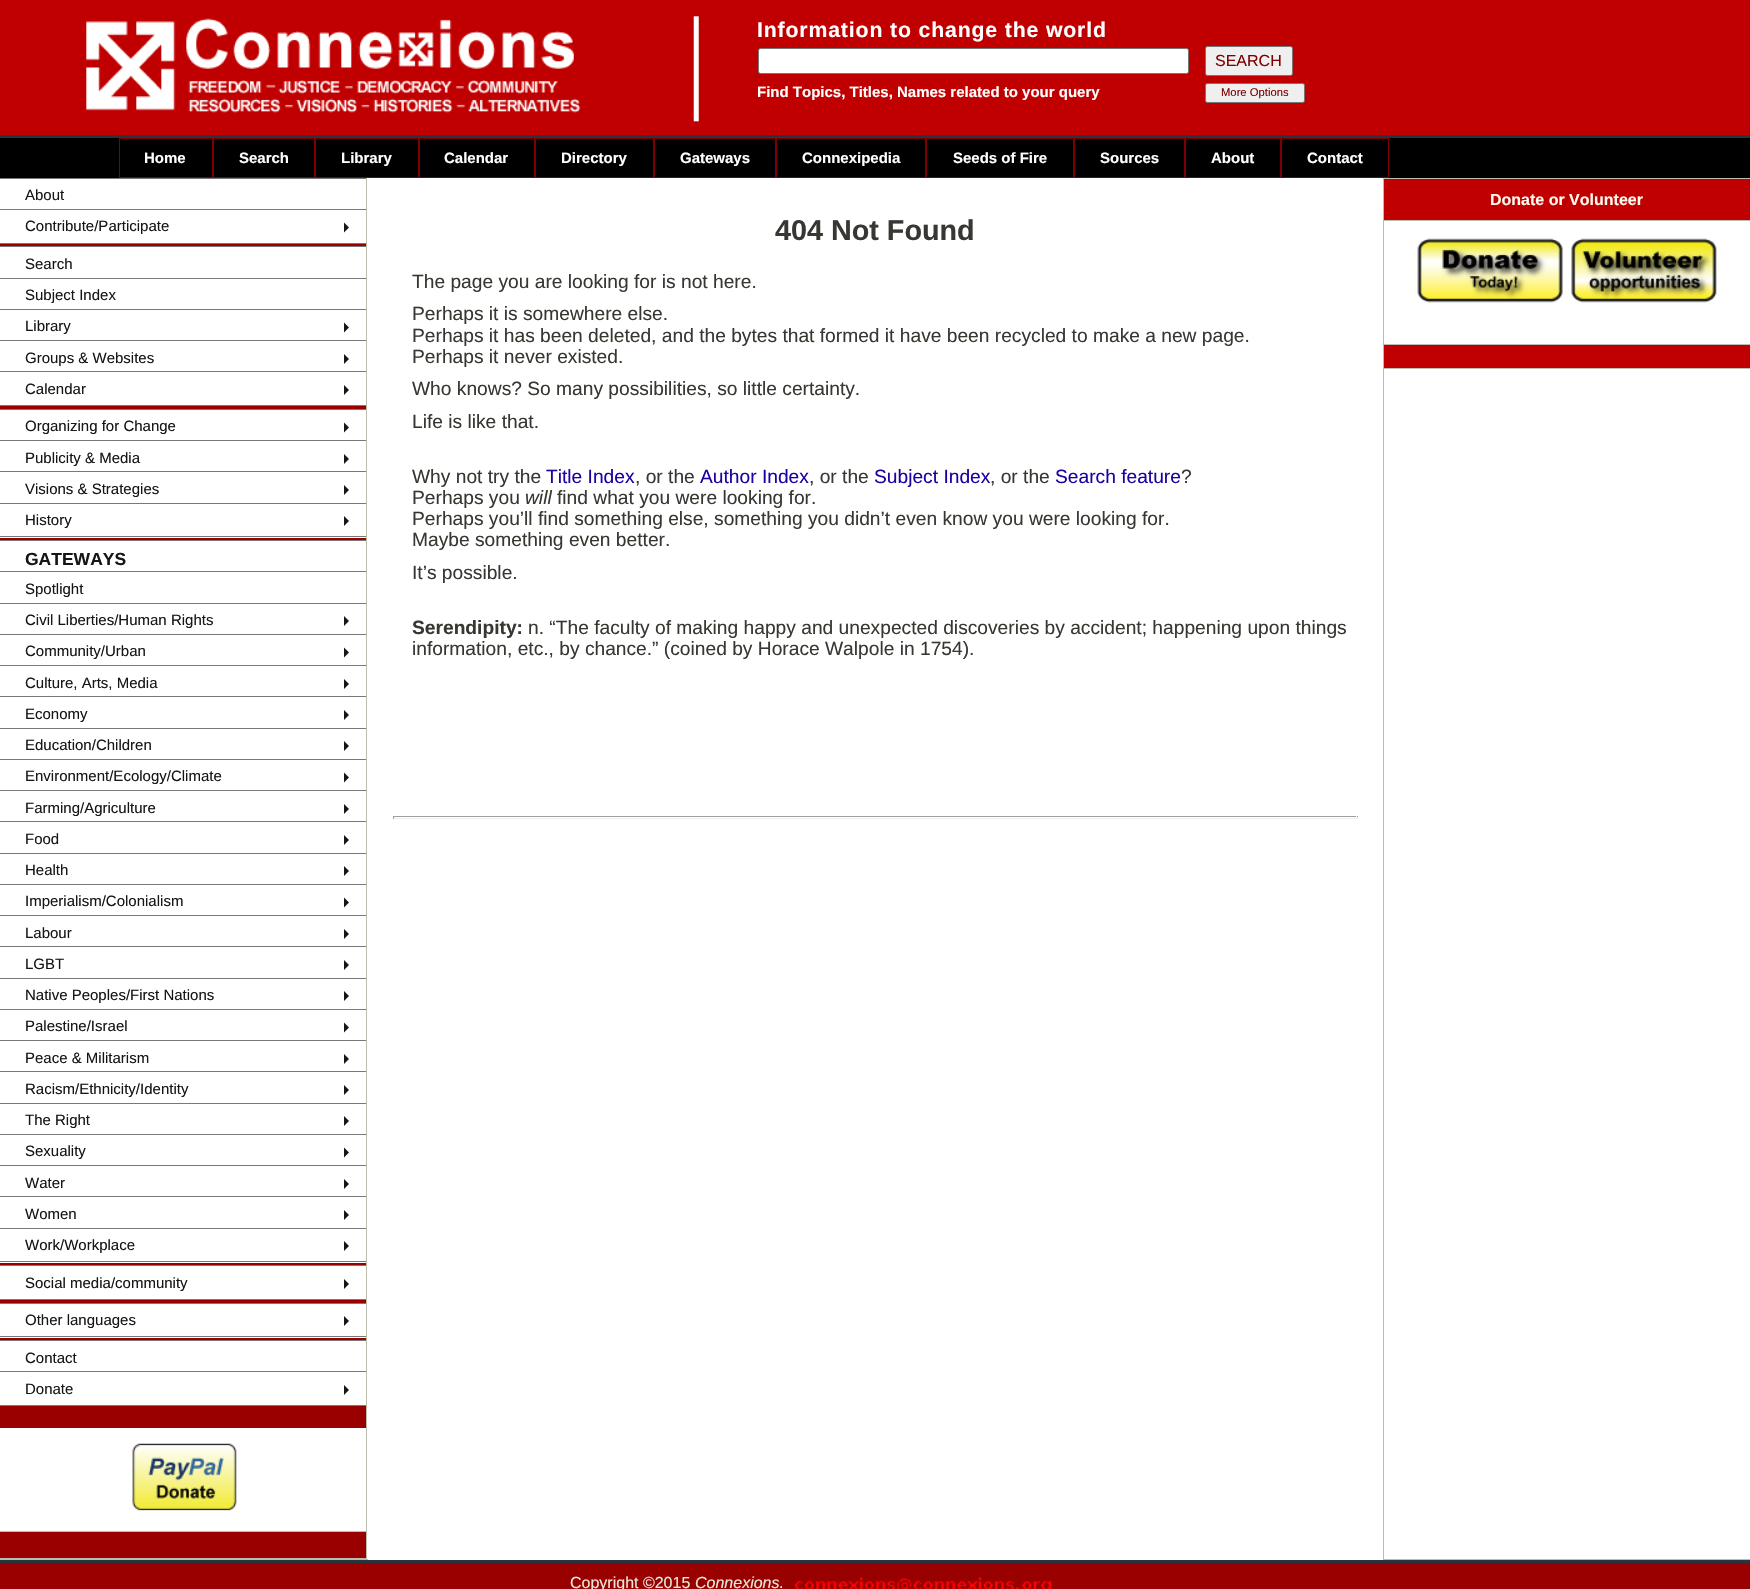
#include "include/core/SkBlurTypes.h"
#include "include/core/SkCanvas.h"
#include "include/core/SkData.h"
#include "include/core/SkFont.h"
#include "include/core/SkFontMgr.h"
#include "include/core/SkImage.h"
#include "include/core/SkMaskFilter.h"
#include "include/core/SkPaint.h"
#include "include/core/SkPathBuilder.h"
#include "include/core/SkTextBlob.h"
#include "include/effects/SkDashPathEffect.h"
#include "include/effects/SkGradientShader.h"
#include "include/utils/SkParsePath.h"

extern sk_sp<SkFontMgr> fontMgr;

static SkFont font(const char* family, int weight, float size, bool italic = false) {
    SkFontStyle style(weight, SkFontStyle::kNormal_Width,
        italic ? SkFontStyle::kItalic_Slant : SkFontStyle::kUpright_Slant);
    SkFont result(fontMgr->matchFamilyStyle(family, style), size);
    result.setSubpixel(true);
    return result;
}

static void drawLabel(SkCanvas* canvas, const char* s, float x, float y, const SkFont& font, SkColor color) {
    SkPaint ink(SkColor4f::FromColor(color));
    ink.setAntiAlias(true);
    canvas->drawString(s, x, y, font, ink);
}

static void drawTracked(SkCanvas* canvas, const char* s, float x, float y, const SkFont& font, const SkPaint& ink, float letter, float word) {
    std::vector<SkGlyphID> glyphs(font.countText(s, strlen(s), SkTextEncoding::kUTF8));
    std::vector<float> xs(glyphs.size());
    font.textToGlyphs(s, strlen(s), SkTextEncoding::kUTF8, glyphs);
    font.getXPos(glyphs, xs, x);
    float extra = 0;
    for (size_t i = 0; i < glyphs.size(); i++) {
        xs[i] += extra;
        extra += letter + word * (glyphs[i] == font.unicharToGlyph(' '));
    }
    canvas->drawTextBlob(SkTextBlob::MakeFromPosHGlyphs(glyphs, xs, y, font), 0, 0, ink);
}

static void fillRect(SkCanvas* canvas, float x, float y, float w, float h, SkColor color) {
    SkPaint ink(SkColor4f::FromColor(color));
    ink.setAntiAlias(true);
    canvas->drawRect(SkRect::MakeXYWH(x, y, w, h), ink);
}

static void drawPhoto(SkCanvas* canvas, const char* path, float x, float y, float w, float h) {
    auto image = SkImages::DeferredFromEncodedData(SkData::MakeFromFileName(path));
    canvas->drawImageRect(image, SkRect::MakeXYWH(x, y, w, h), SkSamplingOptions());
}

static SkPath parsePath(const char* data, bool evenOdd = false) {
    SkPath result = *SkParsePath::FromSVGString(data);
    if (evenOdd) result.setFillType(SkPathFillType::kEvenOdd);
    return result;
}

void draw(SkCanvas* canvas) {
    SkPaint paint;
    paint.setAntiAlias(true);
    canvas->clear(0xFFFFFFFF);
    fillRect(canvas, 0, 0, 1750, 135, 0xFFC00000);
    fillRect(canvas, 0, 135, 1750, 3, 0xFF2A343D);
    drawPhoto(canvas, "assets/img1.png", 86, 16, 613, 106);
    SkFont font1 = font("Liberation Sans", 700, 21.25f);
    paint.setColor(0xFFFFFFFF);
    drawTracked(canvas, "Information to change the world", 757, 37, font1, paint, 0.85f, 0);
    canvas->drawRoundRect(SkRect::MakeXYWH(758.5f, 48.5f, 430, 25), 2, 2, paint);
    paint.setStroke(true);
    paint.setStrokeWidth(1);
    paint.setColor(0xFF767676);
    canvas->drawRoundRect(SkRect::MakeXYWH(758.5f, 48.5f, 430, 25), 2, 2, paint);
    paint.setStroke(false);
    paint.setColor(0xFFEFEFEF);
    canvas->drawRoundRect(SkRect::MakeXYWH(1205.5f, 46.5f, 87, 29), 2, 2, paint);
    paint.setStroke(true);
    paint.setColor(0xFF767676);
    canvas->drawRoundRect(SkRect::MakeXYWH(1205.5f, 46.5f, 87, 29), 2, 2, paint);
    SkFont font2 = font("Liberation Sans", 400, 16);
    drawLabel(canvas, "SEARCH", 1215, 66, font2, 0xFF800000);
    SkFont font3 = font("Liberation Sans", 700, 15);
    drawLabel(canvas, "Find Topics, Titles, Names related to your query", 757, 97, font3, 0xFFFFFFFF);
    paint.setStroke(false);
    paint.setColor(0xFFEFEFEF);
    canvas->drawRoundRect(SkRect::MakeXYWH(1205.5f, 83.5f, 99, 19), 2, 2, paint);
    paint.setStroke(true);
    paint.setColor(0xFF767676);
    canvas->drawRoundRect(SkRect::MakeXYWH(1205.5f, 83.5f, 99, 19), 2, 2, paint);
    SkFont font4 = font("Liberation Sans", 400, 11.25f);
    drawLabel(canvas, "More Options", 1221, 96, font4, 0xFF800000);
    fillRect(canvas, 0, 138, 1750, 40, 0xFF000000);
    paint.setColor(0xFF800000);
    canvas->drawRect(SkRect::MakeXYWH(119.5f, 138.5f, 93, 39), paint);
    drawLabel(canvas, "Home", 144, 163, font3, 0xFFFFFFFF);
    canvas->drawRect(SkRect::MakeXYWH(213.5f, 138.5f, 101, 39), paint);
    drawLabel(canvas, "Search", 239, 163, font3, 0xFFFFFFFF);
    canvas->drawRect(SkRect::MakeXYWH(315.5f, 138.5f, 103, 39), paint);
    drawLabel(canvas, "Library", 341, 163, font3, 0xFFFFFFFF);
    canvas->drawRect(SkRect::MakeXYWH(419.5f, 138.5f, 115, 39), paint);
    drawLabel(canvas, "Calendar", 444, 163, font3, 0xFFFFFFFF);
    canvas->drawRect(SkRect::MakeXYWH(535.5f, 138.5f, 118, 39), paint);
    drawLabel(canvas, "Directory", 561, 163, font3, 0xFFFFFFFF);
    canvas->drawRect(SkRect::MakeXYWH(654.5f, 138.5f, 121, 39), paint);
    drawLabel(canvas, "Gateways", 680, 163, font3, 0xFFFFFFFF);
    canvas->drawRect(SkRect::MakeXYWH(776.5f, 138.5f, 149, 39), paint);
    drawLabel(canvas, "Connexipedia", 802, 163, font3, 0xFFFFFFFF);
    canvas->drawRect(SkRect::MakeXYWH(926.5f, 138.5f, 147, 39), paint);
    drawLabel(canvas, "Seeds of Fire", 953, 163, font3, 0xFFFFFFFF);
    canvas->drawRect(SkRect::MakeXYWH(1074.5f, 138.5f, 110, 39), paint);
    drawLabel(canvas, "Sources", 1100, 163, font3, 0xFFFFFFFF);
    canvas->drawRect(SkRect::MakeXYWH(1185.5f, 138.5f, 95, 39), paint);
    drawLabel(canvas, "About", 1211, 163, font3, 0xFFFFFFFF);
    canvas->drawRect(SkRect::MakeXYWH(1281.5f, 138.5f, 107, 39), paint);
    drawLabel(canvas, "Contact", 1307, 163, font3, 0xFFFFFFFF);
    fillRect(canvas, 366, 178, 1, 1382, 0xFFBBBEAB);
    fillRect(canvas, 0, 1559, 368, 1, 0xFFBBBEAB);
    fillRect(canvas, 0, 178, 366, 1, 0xFF7A7878);
    SkFont font5 = font("Liberation Sans", 400, 15);
    drawLabel(canvas, "About", 25, 200, font5, 0xFF171616);
    fillRect(canvas, 0, 209, 366, 1, 0xFF7A7878);
    fillRect(canvas, 0, 243, 366, 1, 0xFF7A7878);
    drawLabel(canvas, "Contribute/Participate", 25, 231, font5, 0xFF171616);
    paint.setStroke(false);
    paint.setColor(0xFF171616);
    canvas->drawPath(parsePath("M344 232.5V222.5L349 227.5Z"), paint);
    fillRect(canvas, 0, 244, 366, 2, 0xFF990000);
    fillRect(canvas, 0, 246, 366, 1, 0xFF7A7878);
    drawLabel(canvas, "Search", 25, 269, font5, 0xFF171616);
    fillRect(canvas, 0, 278, 366, 1, 0xFF7A7878);
    drawLabel(canvas, "Subject Index", 25, 300, font5, 0xFF171616);
    fillRect(canvas, 0, 309, 366, 1, 0xFF7A7878);
    drawLabel(canvas, "Library", 25, 331, font5, 0xFF171616);
    canvas->drawPath(parsePath("M344 332.5V322.5L349 327.5Z"), paint);
    fillRect(canvas, 0, 340, 366, 1, 0xFF7A7878);
    drawLabel(canvas, "Groups & Websites", 25, 363, font5, 0xFF171616);
    canvas->drawPath(parsePath("M344 364V354L349 359Z"), paint);
    fillRect(canvas, 0, 371, 366, 1, 0xFF7A7878);
    fillRect(canvas, 0, 405, 366, 1, 0xFF7A7878);
    drawLabel(canvas, "Calendar", 25, 394, font5, 0xFF171616);
    canvas->drawPath(parsePath("M344 395V385L349 390Z"), paint);
    fillRect(canvas, 0, 406, 366, 3, 0xFF990000);
    fillRect(canvas, 0, 409, 366, 1, 0xFF7A7878);
    drawLabel(canvas, "Organizing for Change", 25, 431, font5, 0xFF171616);
    canvas->drawPath(parsePath("M344 432.5V422.5L349 427.5Z"), paint);
    fillRect(canvas, 0, 440, 366, 1, 0xFF7A7878);
    drawLabel(canvas, "Publicity & Media", 25, 463, font5, 0xFF171616);
    canvas->drawPath(parsePath("M344 464V454L349 459Z"), paint);
    fillRect(canvas, 0, 471, 366, 1, 0xFF7A7878);
    drawLabel(canvas, "Visions & Strategies", 25, 494, font5, 0xFF171616);
    canvas->drawPath(parsePath("M344 495V485L349 490Z"), paint);
    fillRect(canvas, 0, 503, 366, 1, 0xFF7A7878);
    fillRect(canvas, 0, 536, 366, 1, 0xFF7A7878);
    drawLabel(canvas, "History", 25, 525, font5, 0xFF171616);
    canvas->drawPath(parsePath("M344 526V516L349 521Z"), paint);
    fillRect(canvas, 0, 538, 366, 2, 0xFF990000);
    fillRect(canvas, 0, 540, 366, 1, 0xFF7A7878);
    SkFont font6 = font("Liberation Sans", 700, 17.5f);
    drawLabel(canvas, "GATEWAYS", 25, 565, font6, 0xFF171616);
    fillRect(canvas, 0, 571, 366, 1, 0xFF7A7878);
    drawLabel(canvas, "Spotlight", 25, 594, font5, 0xFF171616);
    fillRect(canvas, 0, 603, 366, 1, 0xFF7A7878);
    drawLabel(canvas, "Civil Liberties/Human Rights", 25, 625, font5, 0xFF171616);
    canvas->drawPath(parsePath("M344 626V616L349 621Z"), paint);
    fillRect(canvas, 0, 634, 366, 1, 0xFF7A7878);
    drawLabel(canvas, "Community/Urban", 25, 656, font5, 0xFF171616);
    canvas->drawPath(parsePath("M344 657.5V647.5L349 652.5Z"), paint);
    fillRect(canvas, 0, 665, 366, 1, 0xFF7A7878);
    drawLabel(canvas, "Culture, Arts, Media", 25, 688, font5, 0xFF171616);
    canvas->drawPath(parsePath("M344 689V679L349 684Z"), paint);
    fillRect(canvas, 0, 696, 366, 1, 0xFF7A7878);
    drawLabel(canvas, "Economy", 25, 719, font5, 0xFF171616);
    canvas->drawPath(parsePath("M344 720V710L349 715Z"), paint);
    fillRect(canvas, 0, 728, 366, 1, 0xFF7A7878);
    drawLabel(canvas, "Education/Children", 25, 750, font5, 0xFF171616);
    canvas->drawPath(parsePath("M344 751V741L349 746Z"), paint);
    fillRect(canvas, 0, 759, 366, 1, 0xFF7A7878);
    drawLabel(canvas, "Environment/Ecology/Climate", 25, 781, font5, 0xFF171616);
    canvas->drawPath(parsePath("M344 782.5V772.5L349 777.5Z"), paint);
    fillRect(canvas, 0, 790, 366, 1, 0xFF7A7878);
    drawLabel(canvas, "Farming/Agriculture", 25, 813, font5, 0xFF171616);
    canvas->drawPath(parsePath("M344 814V804L349 809Z"), paint);
    fillRect(canvas, 0, 821, 366, 1, 0xFF7A7878);
    drawLabel(canvas, "Food", 25, 844, font5, 0xFF171616);
    canvas->drawPath(parsePath("M344 845V835L349 840Z"), paint);
    fillRect(canvas, 0, 853, 366, 1, 0xFF7A7878);
    drawLabel(canvas, "Health", 25, 875, font5, 0xFF171616);
    canvas->drawPath(parsePath("M344 876V866L349 871Z"), paint);
    fillRect(canvas, 0, 884, 366, 1, 0xFF7A7878);
    drawLabel(canvas, "Imperialism/Colonialism", 25, 906, font5, 0xFF171616);
    canvas->drawPath(parsePath("M344 907.5V897.5L349 902.5Z"), paint);
    fillRect(canvas, 0, 915, 366, 1, 0xFF7A7878);
    drawLabel(canvas, "Labour", 25, 938, font5, 0xFF171616);
    canvas->drawPath(parsePath("M344 939V929L349 934Z"), paint);
    fillRect(canvas, 0, 946, 366, 1, 0xFF7A7878);
    drawLabel(canvas, "LGBT", 25, 969, font5, 0xFF171616);
    canvas->drawPath(parsePath("M344 970V960L349 965Z"), paint);
    fillRect(canvas, 0, 978, 366, 1, 0xFF7A7878);
    drawLabel(canvas, "Native Peoples/First Nations", 25, 1000, font5, 0xFF171616);
    canvas->drawPath(parsePath("M344 1001V991L349 996Z"), paint);
    fillRect(canvas, 0, 1009, 366, 1, 0xFF7A7878);
    drawLabel(canvas, "Palestine/Israel", 25, 1031, font5, 0xFF171616);
    canvas->drawPath(parsePath("M344 1032.5V1022.5L349 1027.5Z"), paint);
    fillRect(canvas, 0, 1040, 366, 1, 0xFF7A7878);
    drawLabel(canvas, "Peace & Militarism", 25, 1063, font5, 0xFF171616);
    canvas->drawPath(parsePath("M344 1064V1054L349 1059Z"), paint);
    fillRect(canvas, 0, 1071, 366, 1, 0xFF7A7878);
    drawLabel(canvas, "Racism/Ethnicity/Identity", 25, 1094, font5, 0xFF171616);
    canvas->drawPath(parsePath("M344 1095V1085L349 1090Z"), paint);
    fillRect(canvas, 0, 1103, 366, 1, 0xFF7A7878);
    drawLabel(canvas, "The Right", 25, 1125, font5, 0xFF171616);
    canvas->drawPath(parsePath("M344 1126V1116L349 1121Z"), paint);
    fillRect(canvas, 0, 1134, 366, 1, 0xFF7A7878);
    drawLabel(canvas, "Sexuality", 25, 1156, font5, 0xFF171616);
    canvas->drawPath(parsePath("M344 1157.5V1147.5L349 1152.5Z"), paint);
    fillRect(canvas, 0, 1165, 366, 1, 0xFF7A7878);
    drawLabel(canvas, "Water", 25, 1188, font5, 0xFF171616);
    canvas->drawPath(parsePath("M344 1189V1179L349 1184Z"), paint);
    fillRect(canvas, 0, 1196, 366, 1, 0xFF7A7878);
    drawLabel(canvas, "Women", 25, 1219, font5, 0xFF171616);
    canvas->drawPath(parsePath("M344 1220V1210L349 1215Z"), paint);
    fillRect(canvas, 0, 1228, 366, 1, 0xFF7A7878);
    fillRect(canvas, 0, 1261, 366, 1, 0xFF7A7878);
    drawLabel(canvas, "Work/Workplace", 25, 1250, font5, 0xFF171616);
    canvas->drawPath(parsePath("M344 1251V1241L349 1246Z"), paint);
    fillRect(canvas, 0, 1263, 366, 2, 0xFF990000);
    fillRect(canvas, 0, 1265, 366, 1, 0xFF7A7878);
    fillRect(canvas, 0, 1299, 366, 1, 0xFF7A7878);
    drawLabel(canvas, "Social media/community", 25, 1288, font5, 0xFF171616);
    canvas->drawPath(parsePath("M344 1289V1279L349 1284Z"), paint);
    fillRect(canvas, 0, 1300, 366, 3, 0xFF990000);
    fillRect(canvas, 0, 1303, 366, 1, 0xFF7A7878);
    fillRect(canvas, 0, 1336, 366, 1, 0xFF7A7878);
    drawLabel(canvas, "Other languages", 25, 1325, font5, 0xFF171616);
    canvas->drawPath(parsePath("M344 1326V1316L349 1321Z"), paint);
    fillRect(canvas, 0, 1338, 366, 2, 0xFF990000);
    fillRect(canvas, 0, 1340, 366, 1, 0xFF7A7878);
    drawLabel(canvas, "Contact", 25, 1363, font5, 0xFF171616);
    fillRect(canvas, 0, 1371, 366, 1, 0xFF7A7878);
    fillRect(canvas, 0, 1405, 366, 1, 0xFF7A7878);
    drawLabel(canvas, "Donate", 25, 1394, font5, 0xFF171616);
    canvas->drawPath(parsePath("M344 1395V1385L349 1390Z"), paint);
    fillRect(canvas, 0, 1406, 366, 22, 0xFF990000);
    drawPhoto(canvas, "assets/img2.png", 132, 1443, 105, 68);
    fillRect(canvas, 0, 1532, 366, 26, 0xFF990000);
    fillRect(canvas, 0, 1531, 366, 1, 0xFFBCBEB0);
    fillRect(canvas, 0, 1558, 366, 1, 0xFFBCBEB0);
    fillRect(canvas, 1383, 1559, 367, 1, 0xFFBBBEAB);
    fillRect(canvas, 1383, 178, 1, 1382, 0xFFBBBEAB);
    fillRect(canvas, 1384, 179, 366, 41, 0xFFC00000);
    fillRect(canvas, 1384, 178, 366, 1, 0xFFBCBEB0);
    fillRect(canvas, 1384, 220, 366, 1, 0xFFBCBEB0);
    SkFont font7 = font("Liberation Sans", 700, 16);
    drawLabel(canvas, "Donate or Volunteer", 1490, 205, font7, 0xFFFFFAF0);
    drawPhoto(canvas, "assets/img3.png", 1417, 238, 146, 65);
    drawPhoto(canvas, "assets/img4.png", 1571, 238, 146, 65);
    fillRect(canvas, 1384, 345, 366, 23, 0xFFC00000);
    fillRect(canvas, 1384, 344, 366, 1, 0xFFBCBEB0);
    fillRect(canvas, 1384, 368, 366, 1, 0xFFBCBEB0);
    SkFont font8 = font("Liberation Sans", 700, 28.75f);
    drawLabel(canvas, "404 Not Found", 775, 240, font8, 0xFF373832);
    SkFont font9 = font("Liberation Sans", 400, 19.2f);
    drawLabel(canvas, "The page you are looking for is not here.", 412, 288, font9, 0xFF373832);
    drawLabel(canvas, "Perhaps it is somewhere else.", 412, 320, font9, 0xFF373832);
    drawLabel(canvas, "Perhaps it has been deleted, and the bytes that formed it have been recycled to make a new page.", 412, 342, font9, 0xFF373832);
    drawLabel(canvas, "Perhaps it never existed.", 412, 363, font9, 0xFF373832);
    drawLabel(canvas, "Who knows? So many possibilities, so little certainty.", 412, 395, font9, 0xFF373832);
    drawLabel(canvas, "Life is like that.", 412, 428, font9, 0xFF373832);
    drawLabel(canvas, "Why not try the", 412, 483, font9, 0xFF373832);
    drawLabel(canvas, "Title Index", 546, 483, font9, 0xFF2000A0);
    drawLabel(canvas, ", or the", 635, 483, font9, 0xFF373832);
    drawLabel(canvas, "Author Index", 700, 483, font9, 0xFF2000A0);
    drawLabel(canvas, ", or the", 809, 483, font9, 0xFF373832);
    drawLabel(canvas, "Subject Index", 874, 483, font9, 0xFF2000A0);
    drawLabel(canvas, ", or the", 990, 483, font9, 0xFF373832);
    drawLabel(canvas, "Search feature", 1055, 483, font9, 0xFF2000A0);
    drawLabel(canvas, "?", 1181, 483, font9, 0xFF373832);
    drawLabel(canvas, "Perhaps you", 412, 504, font9, 0xFF373832);
    SkFont font10 = font("Liberation Sans", 400, 19.2f, true);
    drawLabel(canvas, "will", 525, 504, font10, 0xFF373832);
    drawLabel(canvas, "find what you were looking for.", 557, 504, font9, 0xFF373832);
    drawLabel(canvas, "Perhaps you’ll find something else, something you didn’t even know you were looking for.", 412, 525, font9, 0xFF373832);
    drawLabel(canvas, "Maybe something even better.", 412, 546, font9, 0xFF373832);
    drawLabel(canvas, "It’s possible.", 412, 579, font9, 0xFF373832);
    SkFont font11 = font("Liberation Sans", 700, 19.2f);
    drawLabel(canvas, "Serendipity:", 412, 634, font11, 0xFF373832);
    drawLabel(canvas, "n. “The faculty of making happy and unexpected discoveries by accident; happening upon things", 528, 634, font9, 0xFF373832);
    drawLabel(canvas, "information, etc., by chance.” (coined by Horace Walpole in 1754).", 412, 655, font9, 0xFF373832);
    fillRect(canvas, 393, 816, 965, 1, 0xFF9F9F9F);
    fillRect(canvas, 1356, 816, 1, 3, 0xFFEEEEEE);
    fillRect(canvas, 393, 818, 965, 1, 0xFFEEEEEE);
    fillRect(canvas, 393, 816, 1, 3, 0xFF9F9F9F);
    fillRect(canvas, 0, 1563, 1750, 26, 0xFF990000);
    fillRect(canvas, 0, 1560, 1750, 3, 0xFF2A343D);
    drawLabel(canvas, "Copyright ©2015", 570, 1588, font2, 0xFFE7E9DC);
    SkFont font12 = font("Liberation Sans", 400, 16, true);
    drawLabel(canvas, "Connexions", 695, 1588, font12, 0xFFE7E9DC);
    drawLabel(canvas, ".", 779, 1588, font2, 0xFFE7E9DC);
    drawPhoto(canvas, "assets/img5.png", 794, 1577, 258, 12);
}
